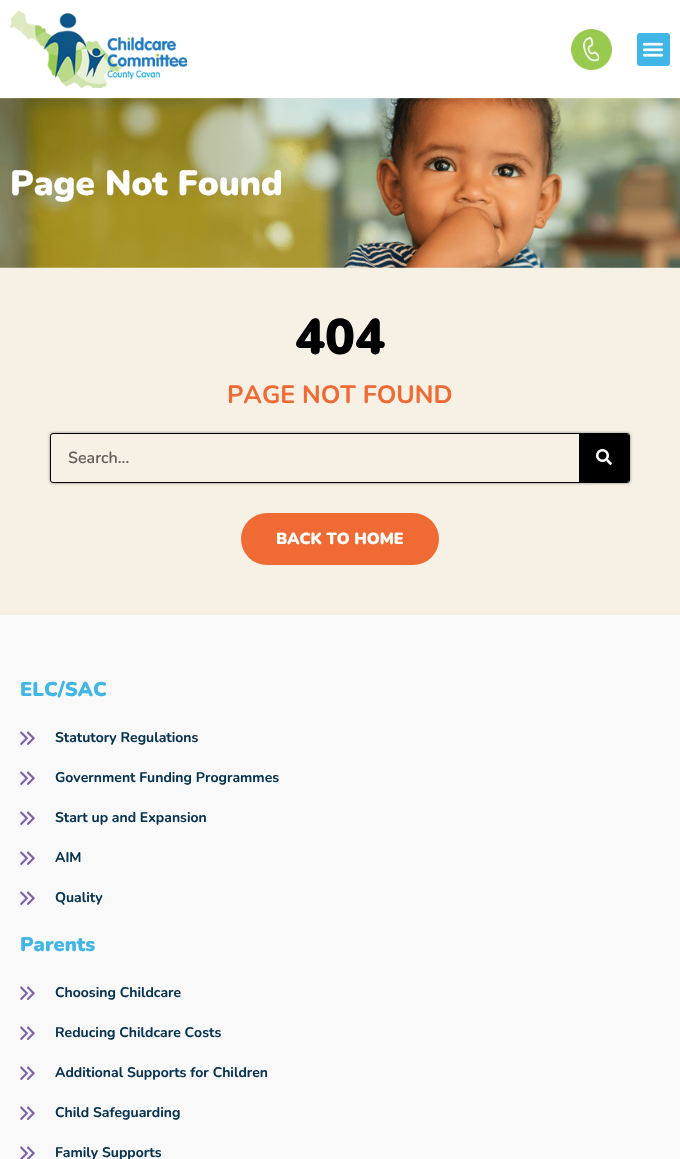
#include "include/core/SkBlurTypes.h"
#include "include/core/SkCanvas.h"
#include "include/core/SkData.h"
#include "include/core/SkFont.h"
#include "include/core/SkFontMgr.h"
#include "include/core/SkImage.h"
#include "include/core/SkMaskFilter.h"
#include "include/core/SkPaint.h"
#include "include/core/SkPathBuilder.h"
#include "include/core/SkTextBlob.h"
#include "include/effects/SkDashPathEffect.h"
#include "include/effects/SkGradientShader.h"
#include "include/utils/SkParsePath.h"

extern sk_sp<SkFontMgr> fontMgr;

static SkFont font(const char* family, int weight, float size, bool italic = false) {
    SkFontStyle style(weight, SkFontStyle::kNormal_Width,
        italic ? SkFontStyle::kItalic_Slant : SkFontStyle::kUpright_Slant);
    SkFont result(fontMgr->matchFamilyStyle(family, style), size);
    result.setSubpixel(true);
    return result;
}

static void drawLabel(SkCanvas* canvas, const char* s, float x, float y, const SkFont& font, SkColor color) {
    SkPaint ink(SkColor4f::FromColor(color));
    ink.setAntiAlias(true);
    canvas->drawString(s, x, y, font, ink);
}

static void fillRect(SkCanvas* canvas, float x, float y, float w, float h, SkColor color) {
    SkPaint ink(SkColor4f::FromColor(color));
    ink.setAntiAlias(true);
    canvas->drawRect(SkRect::MakeXYWH(x, y, w, h), ink);
}

static void fillRRect(SkCanvas* canvas, float x, float y, float w, float h, float radius, SkColor color) {
    SkPaint ink(SkColor4f::FromColor(color));
    ink.setAntiAlias(true);
    canvas->drawRoundRect(SkRect::MakeXYWH(x, y, w, h), radius, radius, ink);
}

static void drawPhoto(SkCanvas* canvas, const char* path, float x, float y, float w, float h) {
    auto image = SkImages::DeferredFromEncodedData(SkData::MakeFromFileName(path));
    canvas->drawImageRect(image, SkRect::MakeXYWH(x, y, w, h), SkSamplingOptions());
}

static SkPath parsePath(const char* data, bool evenOdd = false) {
    SkPath result = *SkParsePath::FromSVGString(data);
    if (evenOdd) result.setFillType(SkPathFillType::kEvenOdd);
    return result;
}

void draw(SkCanvas* canvas) {
    SkPaint paint;
    paint.setAntiAlias(true);
    canvas->clear(0xFFFFFFFF);
    drawPhoto(canvas, "assets/img1.png", 10, 10, 177, 78);
    drawPhoto(canvas, "assets/img2.png", 571, 29, 41, 41);
    fillRRect(canvas, 637, 33, 33, 33, 3, 0xFF3FB6E5);
    drawPhoto(canvas, "assets/img3.png", 642, 42, 22, 15);
    drawPhoto(canvas, "assets/img4.png", 0, 98, 680, 170);
    SkFont font1 = font("Nunito", 900, 35);
    drawLabel(canvas, "Page Not Found", 10, 195, font1, 0xFFFFFFFF);
    fillRect(canvas, 0, 268, 680, 347, 0xFFF7F1E5);
    SkFont font2 = font("Nunito", 900, 50);
    drawLabel(canvas, "404", 295, 354, font2, 0xFF000000);
    SkFont font3 = font("Nunito", 700, 25);
    drawLabel(canvas, "PAGE NOT FOUND", 227, 403, font3, 0xFFF06A34);
    canvas->save();
    canvas->clipPath(parsePath("M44 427H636V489H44ZM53 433H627C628.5 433 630 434.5 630 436V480C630 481.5 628.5 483 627 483H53C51.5 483 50 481.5 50 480V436C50 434.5 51.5 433 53 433Z", true), true);
    paint.setColor(0x80000000);
    paint.setMaskFilter(SkMaskFilter::MakeBlur(kNormal_SkBlurStyle, 1.5f));
    canvas->drawRoundRect(SkRect::MakeXYWH(50, 433, 580, 50), 3, 3, paint);
    paint.setMaskFilter(nullptr);
    canvas->restore();
    paint.setStroke(true);
    paint.setStrokeWidth(1);
    paint.setColor(0xFF000000);
    canvas->drawRoundRect(SkRect::MakeXYWH(50.5f, 433.5f, 579, 49), 2.5f, 2.5f, paint);
    SkFont font4 = font("Nunito", 600, 16);
    drawLabel(canvas, "Search...", 68, 463, font4, 0xFF63605C);
    paint.setStroke(false);
    canvas->drawPath(parsePath("M579 434H627C628 434 629 435 629 436V480C629 481 628 482 627 482H579Z"), paint);
    drawPhoto(canvas, "assets/img5.png", 596, 449, 16, 16);
    fillRRect(canvas, 241, 513, 198, 52, 26, 0xFFF06A34);
    SkFont font5 = font("Nunito", 900, 16);
    drawLabel(canvas, "BACK TO HOME", 276, 544, font5, 0xFFFFFFFF);
    fillRect(canvas, 0, 615, 680, 544, 0xFFF9F9F9);
    SkFont font6 = font("Nunito", 900, 20);
    drawLabel(canvas, "ELC/SAC", 20, 696, font6, 0xFF3FB6E5);
    drawPhoto(canvas, "assets/img6.png", 20, 731, 15, 14);
    SkFont font7 = font("Nunito", 700, 14);
    drawLabel(canvas, "Statutory Regulations", 55, 742, font7, 0xFF073453);
    drawPhoto(canvas, "assets/img6.png", 20, 771, 15, 14);
    drawLabel(canvas, "Government Funding Programmes", 55, 782, font7, 0xFF073453);
    drawPhoto(canvas, "assets/img6.png", 20, 811, 15, 14);
    drawLabel(canvas, "Start up and Expansion", 55, 822, font7, 0xFF073453);
    drawPhoto(canvas, "assets/img6.png", 20, 851, 15, 14);
    drawLabel(canvas, "AIM", 55, 862, font7, 0xFF073453);
    drawPhoto(canvas, "assets/img6.png", 20, 891, 15, 14);
    drawLabel(canvas, "Quality", 55, 902, font7, 0xFF073453);
    drawLabel(canvas, "Parents", 20, 951, font6, 0xFF3FB6E5);
    drawPhoto(canvas, "assets/img6.png", 20, 986, 15, 14);
    drawLabel(canvas, "Choosing Childcare", 55, 997, font7, 0xFF073453);
    drawPhoto(canvas, "assets/img6.png", 20, 1026, 15, 14);
    drawLabel(canvas, "Reducing Childcare Costs", 55, 1037, font7, 0xFF073453);
    drawPhoto(canvas, "assets/img6.png", 20, 1066, 15, 14);
    drawLabel(canvas, "Additional Supports for Children", 55, 1077, font7, 0xFF073453);
    drawPhoto(canvas, "assets/img6.png", 20, 1106, 15, 14);
    drawLabel(canvas, "Child Safeguarding", 55, 1117, font7, 0xFF073453);
    drawPhoto(canvas, "assets/img7.png", 20, 1146, 15, 13);
    drawLabel(canvas, "Family Supports", 55, 1157, font7, 0xFF073453);
}
